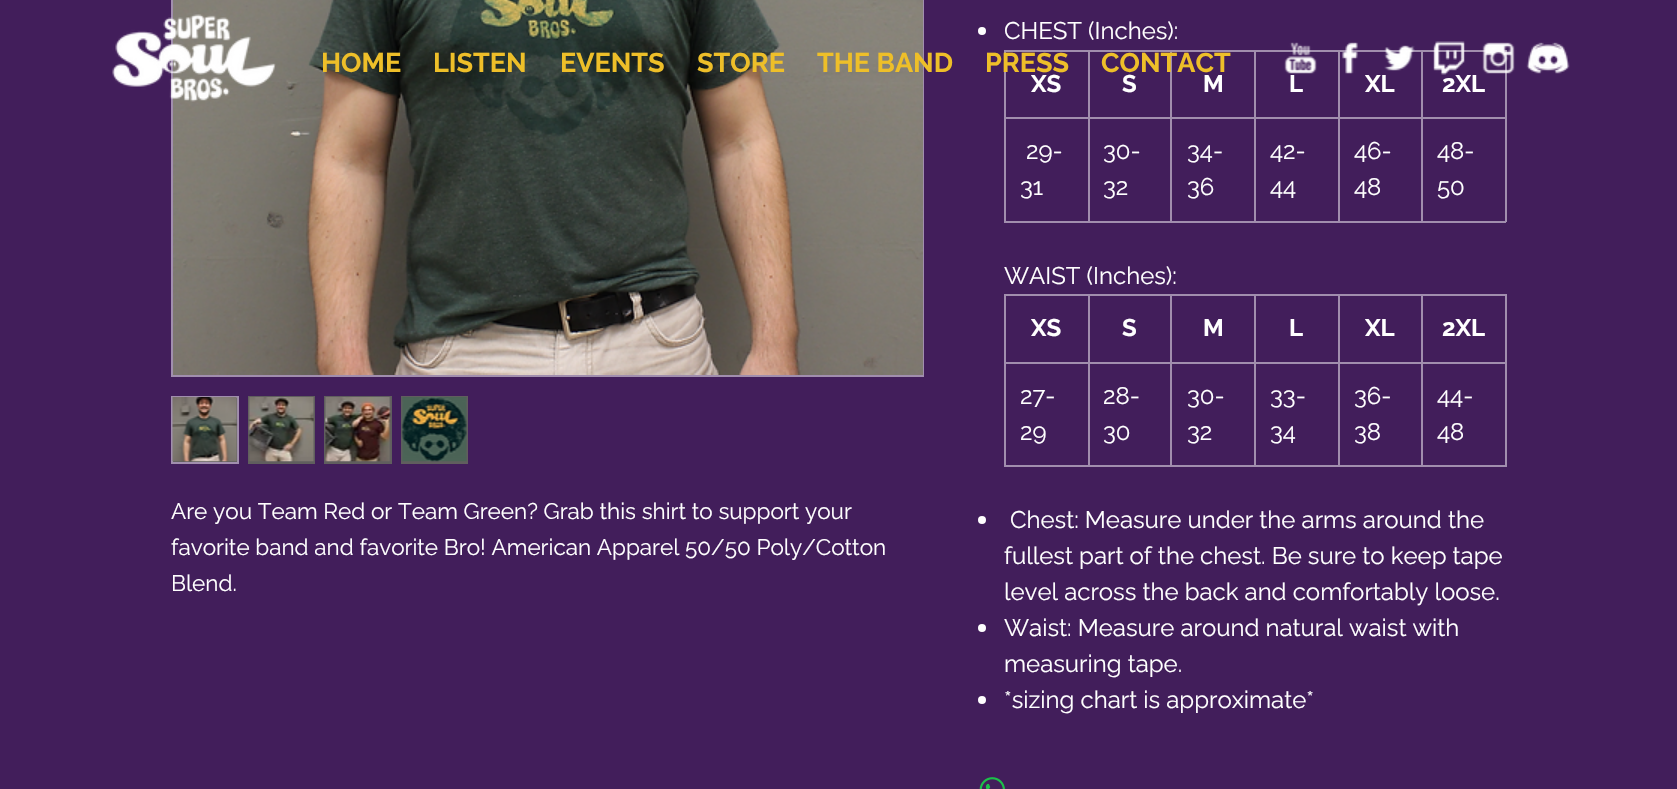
#include "include/core/SkBlurTypes.h"
#include "include/core/SkCanvas.h"
#include "include/core/SkData.h"
#include "include/core/SkFont.h"
#include "include/core/SkFontMgr.h"
#include "include/core/SkImage.h"
#include "include/core/SkMaskFilter.h"
#include "include/core/SkPaint.h"
#include "include/core/SkPathBuilder.h"
#include "include/core/SkTextBlob.h"
#include "include/effects/SkDashPathEffect.h"
#include "include/effects/SkGradientShader.h"
#include "include/utils/SkParsePath.h"

extern sk_sp<SkFontMgr> fontMgr;

static SkFont font(const char* family, int weight, float size, bool italic = false) {
    SkFontStyle style(weight, SkFontStyle::kNormal_Width,
        italic ? SkFontStyle::kItalic_Slant : SkFontStyle::kUpright_Slant);
    SkFont result(fontMgr->matchFamilyStyle(family, style), size);
    result.setSubpixel(true);
    return result;
}

static void drawLabel(SkCanvas* canvas, const char* s, float x, float y, const SkFont& font, SkColor color) {
    SkPaint ink(SkColor4f::FromColor(color));
    ink.setAntiAlias(true);
    canvas->drawString(s, x, y, font, ink);
}

static void fillRect(SkCanvas* canvas, float x, float y, float w, float h, SkColor color) {
    SkPaint ink(SkColor4f::FromColor(color));
    ink.setAntiAlias(true);
    canvas->drawRect(SkRect::MakeXYWH(x, y, w, h), ink);
}

static void drawPhoto(SkCanvas* canvas, const char* path, float x, float y, float w, float h) {
    auto image = SkImages::DeferredFromEncodedData(SkData::MakeFromFileName(path));
    canvas->drawImageRect(image, SkRect::MakeXYWH(x, y, w, h), SkSamplingOptions());
}

void draw(SkCanvas* canvas) {
    SkPaint paint;
    paint.setAntiAlias(true);
    canvas->clear(0xFF421E5B);
    paint.setStroke(true);
    paint.setStrokeWidth(2);
    paint.setColor(0xFFA18EAE);
    canvas->drawRect(SkRect::MakeXYWH(172, -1, 751, 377), paint);
    drawPhoto(canvas, "assets/img1.png", 173, 0, 750, 375);
    paint.setStroke(false);
    paint.setColor(0xFF605E5E);
    canvas->drawRect(SkRect::MakeXYWH(172, 397, 66, 66), paint);
    paint.setStroke(true);
    paint.setColor(0xFFA18EAE);
    canvas->drawRect(SkRect::MakeXYWH(172, 397, 66, 66), paint);
    drawPhoto(canvas, "assets/img2.png", 172, 397, 66, 65);
    fillRect(canvas, 248, 396, 67, 68, 0xFF605E5E);
    drawPhoto(canvas, "assets/img3.png", 248, 397, 66, 65);
    fillRect(canvas, 324, 396, 68, 68, 0xFF605E5E);
    drawPhoto(canvas, "assets/img4.png", 325, 397, 66, 65);
    fillRect(canvas, 401, 396, 67, 68, 0xFF605E5E);
    drawPhoto(canvas, "assets/img5.png", 401, 397, 66, 65);
    SkFont font1 = font("Raleway", 400, 22.5f);
    drawLabel(canvas, "Are you Team Red or Team Green? Grab this shirt to support your", 171, 519, font1, 0xFFFFFFFF);
    drawLabel(canvas, "favorite band and favorite Bro! American Apparel 50/50 Poly/Cotton", 171, 555, font1, 0xFFFFFFFF);
    drawLabel(canvas, "Blend.", 171, 591, font1, 0xFFFFFFFF);
    paint.setStroke(false);
    paint.setColor(0xFFFFFFFF);
    canvas->drawCircle(982, 31, 4, paint);
    SkFont font2 = font("Raleway", 400, 24);
    drawLabel(canvas, "CHEST (Inches):", 1004, 39, font2, 0xFFFFFFFF);
    fillRect(canvas, 1421, 50, 85, 2, 0xFFA18EAE);
    fillRect(canvas, 1421, 117, 85, 2, 0xFFA18EAE);
    fillRect(canvas, 1505, 117, 2, 105, 0xFFA18EAE);
    fillRect(canvas, 1421, 221, 85, 2, 0xFFA18EAE);
    fillRect(canvas, 1421, 117, 2, 105, 0xFFA18EAE);
    fillRect(canvas, 1338, 117, 84, 2, 0xFFA18EAE);
    fillRect(canvas, 1421, 50, 2, 69, 0xFFA18EAE);
    fillRect(canvas, 1338, 50, 84, 2, 0xFFA18EAE);
    fillRect(canvas, 1338, 221, 84, 2, 0xFFA18EAE);
    fillRect(canvas, 1338, 117, 2, 105, 0xFFA18EAE);
    fillRect(canvas, 1254, 117, 86, 2, 0xFFA18EAE);
    fillRect(canvas, 1338, 50, 2, 69, 0xFFA18EAE);
    fillRect(canvas, 1254, 50, 86, 2, 0xFFA18EAE);
    fillRect(canvas, 1254, 221, 86, 2, 0xFFA18EAE);
    fillRect(canvas, 1254, 117, 2, 105, 0xFFA18EAE);
    fillRect(canvas, 1170, 117, 86, 2, 0xFFA18EAE);
    fillRect(canvas, 1254, 50, 2, 69, 0xFFA18EAE);
    fillRect(canvas, 1170, 50, 86, 2, 0xFFA18EAE);
    fillRect(canvas, 1170, 221, 86, 2, 0xFFA18EAE);
    fillRect(canvas, 1170, 117, 2, 105, 0xFFA18EAE);
    fillRect(canvas, 1088, 117, 84, 2, 0xFFA18EAE);
    fillRect(canvas, 1170, 50, 2, 69, 0xFFA18EAE);
    fillRect(canvas, 1088, 50, 84, 2, 0xFFA18EAE);
    fillRect(canvas, 1088, 221, 84, 2, 0xFFA18EAE);
    fillRect(canvas, 1088, 117, 2, 105, 0xFFA18EAE);
    fillRect(canvas, 1004, 117, 85, 2, 0xFFA18EAE);
    fillRect(canvas, 1088, 50, 2, 69, 0xFFA18EAE);
    fillRect(canvas, 1004, 50, 85, 2, 0xFFA18EAE);
    fillRect(canvas, 1004, 221, 85, 2, 0xFFA18EAE);
    fillRect(canvas, 1004, 117, 2, 105, 0xFFA18EAE);
    fillRect(canvas, 1004, 50, 2, 69, 0xFFA18EAE);
    SkFont font3 = font("Raleway", 700, 24);
    drawLabel(canvas, "XS", 1031, 92, font3, 0xFFFFFFFF);
    drawLabel(canvas, "S", 1122, 92, font3, 0xFFFFFFFF);
    drawLabel(canvas, "M", 1203, 92, font3, 0xFFFFFFFF);
    drawLabel(canvas, "L", 1289, 92, font3, 0xFFFFFFFF);
    drawLabel(canvas, "XL", 1365, 92, font3, 0xFFFFFFFF);
    fillRect(canvas, 1505, 50, 2, 69, 0xFFA18EAE);
    drawLabel(canvas, "2XL", 1442, 92, font3, 0xFFFFFFFF);
    drawLabel(canvas, "29-", 1026, 159, font2, 0xFFFFFFFF);
    drawLabel(canvas, "31", 1020, 195, font2, 0xFFFFFFFF);
    drawLabel(canvas, "30-", 1103, 159, font2, 0xFFFFFFFF);
    drawLabel(canvas, "32", 1103, 195, font2, 0xFFFFFFFF);
    drawLabel(canvas, "34-", 1187, 159, font2, 0xFFFFFFFF);
    drawLabel(canvas, "36", 1187, 195, font2, 0xFFFFFFFF);
    drawLabel(canvas, "42-", 1270, 159, font2, 0xFFFFFFFF);
    drawLabel(canvas, "44", 1270, 195, font2, 0xFFFFFFFF);
    drawLabel(canvas, "46-", 1354, 159, font2, 0xFFFFFFFF);
    drawLabel(canvas, "48", 1354, 195, font2, 0xFFFFFFFF);
    drawLabel(canvas, "48-", 1437, 159, font2, 0xFFFFFFFF);
    drawLabel(canvas, "50", 1437, 195, font2, 0xFFFFFFFF);
    drawLabel(canvas, "WAIST (Inches):", 1004, 284, font2, 0xFFFFFFFF);
    fillRect(canvas, 1421, 294, 85, 2, 0xFFA18EAE);
    fillRect(canvas, 1421, 362, 85, 2, 0xFFA18EAE);
    fillRect(canvas, 1505, 362, 2, 105, 0xFFA18EAE);
    fillRect(canvas, 1421, 465, 85, 2, 0xFFA18EAE);
    fillRect(canvas, 1421, 362, 2, 105, 0xFFA18EAE);
    fillRect(canvas, 1338, 362, 84, 2, 0xFFA18EAE);
    fillRect(canvas, 1421, 294, 2, 69, 0xFFA18EAE);
    fillRect(canvas, 1338, 294, 84, 2, 0xFFA18EAE);
    fillRect(canvas, 1338, 465, 84, 2, 0xFFA18EAE);
    fillRect(canvas, 1338, 362, 2, 105, 0xFFA18EAE);
    fillRect(canvas, 1254, 362, 86, 2, 0xFFA18EAE);
    fillRect(canvas, 1338, 294, 2, 69, 0xFFA18EAE);
    fillRect(canvas, 1254, 294, 86, 2, 0xFFA18EAE);
    fillRect(canvas, 1254, 465, 86, 2, 0xFFA18EAE);
    fillRect(canvas, 1254, 362, 2, 105, 0xFFA18EAE);
    fillRect(canvas, 1170, 362, 86, 2, 0xFFA18EAE);
    fillRect(canvas, 1254, 294, 2, 69, 0xFFA18EAE);
    fillRect(canvas, 1170, 294, 86, 2, 0xFFA18EAE);
    fillRect(canvas, 1170, 465, 86, 2, 0xFFA18EAE);
    fillRect(canvas, 1170, 362, 2, 105, 0xFFA18EAE);
    fillRect(canvas, 1088, 362, 84, 2, 0xFFA18EAE);
    fillRect(canvas, 1170, 294, 2, 69, 0xFFA18EAE);
    fillRect(canvas, 1088, 294, 84, 2, 0xFFA18EAE);
    fillRect(canvas, 1088, 465, 84, 2, 0xFFA18EAE);
    fillRect(canvas, 1088, 362, 2, 105, 0xFFA18EAE);
    fillRect(canvas, 1004, 362, 85, 2, 0xFFA18EAE);
    fillRect(canvas, 1088, 294, 2, 69, 0xFFA18EAE);
    fillRect(canvas, 1004, 294, 85, 2, 0xFFA18EAE);
    fillRect(canvas, 1004, 465, 85, 2, 0xFFA18EAE);
    fillRect(canvas, 1004, 362, 2, 105, 0xFFA18EAE);
    fillRect(canvas, 1004, 294, 2, 69, 0xFFA18EAE);
    drawLabel(canvas, "XS", 1031, 336, font3, 0xFFFFFFFF);
    drawLabel(canvas, "S", 1122, 336, font3, 0xFFFFFFFF);
    drawLabel(canvas, "M", 1203, 336, font3, 0xFFFFFFFF);
    drawLabel(canvas, "L", 1289, 336, font3, 0xFFFFFFFF);
    drawLabel(canvas, "XL", 1365, 336, font3, 0xFFFFFFFF);
    fillRect(canvas, 1505, 294, 2, 69, 0xFFA18EAE);
    drawLabel(canvas, "2XL", 1442, 336, font3, 0xFFFFFFFF);
    drawLabel(canvas, "27-", 1020, 404, font2, 0xFFFFFFFF);
    drawLabel(canvas, "29", 1020, 440, font2, 0xFFFFFFFF);
    drawLabel(canvas, "28-", 1103, 404, font2, 0xFFFFFFFF);
    drawLabel(canvas, "30", 1103, 440, font2, 0xFFFFFFFF);
    drawLabel(canvas, "30-", 1187, 404, font2, 0xFFFFFFFF);
    drawLabel(canvas, "32", 1187, 440, font2, 0xFFFFFFFF);
    drawLabel(canvas, "33-", 1270, 404, font2, 0xFFFFFFFF);
    drawLabel(canvas, "34", 1270, 440, font2, 0xFFFFFFFF);
    drawLabel(canvas, "36-", 1354, 404, font2, 0xFFFFFFFF);
    drawLabel(canvas, "38", 1354, 440, font2, 0xFFFFFFFF);
    drawLabel(canvas, "44-", 1437, 404, font2, 0xFFFFFFFF);
    drawLabel(canvas, "48", 1437, 440, font2, 0xFFFFFFFF);
    canvas->drawCircle(982, 520, 4, paint);
    drawLabel(canvas, "Chest: Measure under the arms around the", 1010, 528, font2, 0xFFFFFFFF);
    drawLabel(canvas, "fullest part of the chest. Be sure to keep tape", 1004, 564, font2, 0xFFFFFFFF);
    drawLabel(canvas, "level across the back and comfortably loose.", 1004, 600, font2, 0xFFFFFFFF);
    canvas->drawCircle(982, 628, 4, paint);
    drawLabel(canvas, "Waist: Measure around natural waist with", 1004, 636, font2, 0xFFFFFFFF);
    drawLabel(canvas, "measuring tape.", 1004, 672, font2, 0xFFFFFFFF);
    canvas->drawCircle(982, 700, 4, paint);
    drawLabel(canvas, "*sizing chart is approximate*", 1004, 708, font2, 0xFFFFFFFF);
    drawPhoto(canvas, "assets/img6.png", 979, 777, 26, 12);
    drawPhoto(canvas, "assets/img7.png", 112, 14, 164, 88);
    SkFont font4 = font("Raleway", 700, 27);
    drawLabel(canvas, "HOME", 321, 72, font4, 0xFFEEBF29);
    drawLabel(canvas, "LISTEN", 433, 72, font4, 0xFFEEBF29);
    drawLabel(canvas, "EVENTS", 560, 72, font4, 0xFFEEBF29);
    drawLabel(canvas, "STORE", 697, 72, font4, 0xFFEEBF29);
    drawLabel(canvas, "THE BAND", 817, 72, font4, 0xFFEEBF29);
    drawLabel(canvas, "PRESS", 985, 72, font4, 0xFFEEBF29);
    drawLabel(canvas, "CONTACT", 1101, 72, font4, 0xFFEEBF29);
    drawPhoto(canvas, "assets/img8.png", 1284, 42, 33, 32);
    drawPhoto(canvas, "assets/img9.png", 1342, 42, 16, 32);
    drawPhoto(canvas, "assets/img10.png", 1384, 45, 31, 26);
    drawPhoto(canvas, "assets/img11.png", 1433, 41, 32, 34);
    drawPhoto(canvas, "assets/img12.png", 1482, 42, 33, 32);
    drawPhoto(canvas, "assets/img13.png", 1526, 42, 44, 32);
}
